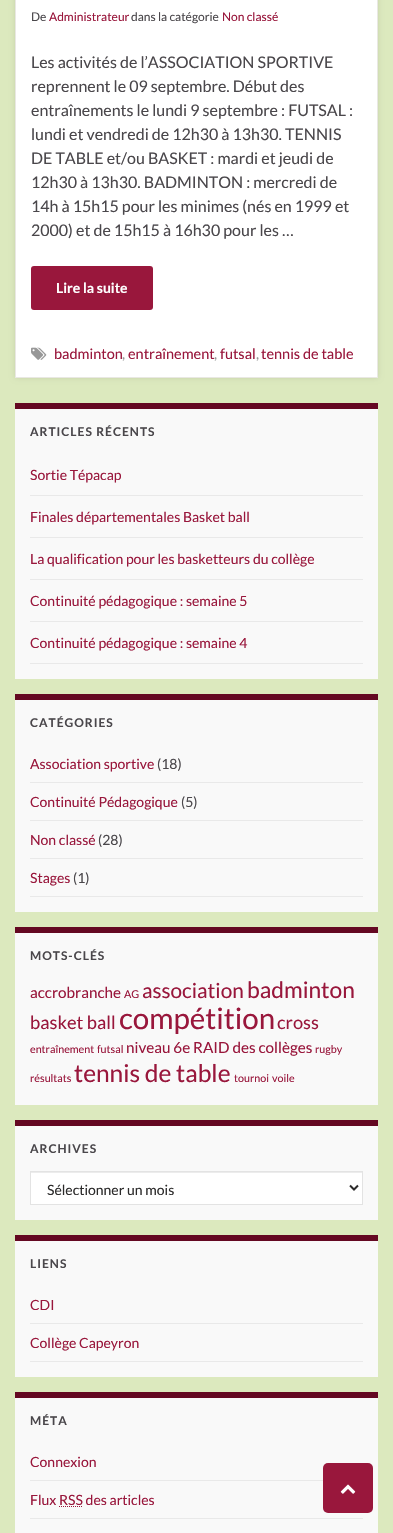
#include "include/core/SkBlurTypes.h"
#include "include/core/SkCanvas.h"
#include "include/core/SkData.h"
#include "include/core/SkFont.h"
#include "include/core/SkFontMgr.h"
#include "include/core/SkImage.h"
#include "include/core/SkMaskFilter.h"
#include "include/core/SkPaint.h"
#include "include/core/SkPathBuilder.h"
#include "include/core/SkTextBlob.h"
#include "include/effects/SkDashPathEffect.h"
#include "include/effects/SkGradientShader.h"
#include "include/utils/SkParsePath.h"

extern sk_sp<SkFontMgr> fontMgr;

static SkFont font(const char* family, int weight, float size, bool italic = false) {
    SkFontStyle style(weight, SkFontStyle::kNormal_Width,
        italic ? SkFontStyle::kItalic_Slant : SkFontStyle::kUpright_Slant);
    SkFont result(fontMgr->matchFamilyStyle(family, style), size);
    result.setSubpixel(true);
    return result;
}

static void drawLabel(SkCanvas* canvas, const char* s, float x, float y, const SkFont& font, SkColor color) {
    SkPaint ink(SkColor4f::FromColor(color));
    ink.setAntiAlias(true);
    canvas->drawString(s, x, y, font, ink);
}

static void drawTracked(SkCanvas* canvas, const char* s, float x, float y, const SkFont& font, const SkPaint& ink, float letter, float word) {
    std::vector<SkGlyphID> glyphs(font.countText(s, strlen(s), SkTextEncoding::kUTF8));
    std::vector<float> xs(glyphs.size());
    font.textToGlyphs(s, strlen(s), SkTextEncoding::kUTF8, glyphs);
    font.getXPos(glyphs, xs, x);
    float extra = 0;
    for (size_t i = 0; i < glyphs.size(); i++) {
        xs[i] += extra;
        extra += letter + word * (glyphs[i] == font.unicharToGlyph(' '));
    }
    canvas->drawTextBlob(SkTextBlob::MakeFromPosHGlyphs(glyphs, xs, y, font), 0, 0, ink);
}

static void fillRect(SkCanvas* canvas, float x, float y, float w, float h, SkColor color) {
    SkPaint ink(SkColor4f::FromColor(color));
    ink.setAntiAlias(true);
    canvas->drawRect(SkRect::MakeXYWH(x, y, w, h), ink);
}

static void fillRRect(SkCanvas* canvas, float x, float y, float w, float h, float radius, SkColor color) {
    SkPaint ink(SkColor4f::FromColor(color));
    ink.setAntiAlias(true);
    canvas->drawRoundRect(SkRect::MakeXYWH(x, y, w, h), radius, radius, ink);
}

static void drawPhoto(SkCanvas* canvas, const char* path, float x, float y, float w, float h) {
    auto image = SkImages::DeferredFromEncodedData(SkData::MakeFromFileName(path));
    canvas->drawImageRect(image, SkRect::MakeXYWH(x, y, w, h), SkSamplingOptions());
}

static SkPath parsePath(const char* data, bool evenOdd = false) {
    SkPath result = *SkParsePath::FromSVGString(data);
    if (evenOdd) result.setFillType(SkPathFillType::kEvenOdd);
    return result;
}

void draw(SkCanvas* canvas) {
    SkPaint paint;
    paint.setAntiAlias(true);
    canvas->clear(0xFFDCE9BE);
    paint.setColor(0x1A000000);
    paint.setMaskFilter(SkMaskFilter::MakeBlur(kNormal_SkBlurStyle, 2.5f));
    canvas->drawRect(SkRect::MakeXYWH(15, -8, 363, 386), paint);
    paint.setMaskFilter(nullptr);
    paint.setColor(0xFFFFFFFF);
    canvas->drawRect(SkRect::MakeXYWH(15.5f, -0.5f, 362, 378), paint);
    paint.setStroke(true);
    paint.setStrokeWidth(1);
    paint.setColor(0xFFE9E8E3);
    canvas->drawRect(SkRect::MakeXYWH(15.5f, -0.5f, 362, 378), paint);
    SkFont font1 = font("Lato", 400, 12);
    drawLabel(canvas, "De", 31, 21, font1, 0xFF4A474B);
    drawLabel(canvas, "Administrateur", 49, 21, font1, 0xFF99173C);
    drawLabel(canvas, "dans la catégorie", 131, 21, font1, 0xFF4A474B);
    drawLabel(canvas, "Non classé", 222, 21, font1, 0xFF99173C);
    SkFont font2 = font("Lato", 400, 16);
    drawLabel(canvas, "Les activités de l’ASSOCIATION SPORTIVE", 31, 68, font2, 0xFF4A474B);
    drawLabel(canvas, "reprennent le 09 septembre. Début des", 31, 92, font2, 0xFF4A474B);
    drawLabel(canvas, "entraînements le lundi 9 septembre : FUTSAL :", 31, 116, font2, 0xFF4A474B);
    drawLabel(canvas, "lundi et vendredi de 12h30 à 13h30. TENNIS", 31, 140, font2, 0xFF4A474B);
    drawLabel(canvas, "DE TABLE et/ou BASKET : mardi et jeudi de", 31, 164, font2, 0xFF4A474B);
    drawLabel(canvas, "12h30 à 13h30. BADMINTON : mercredi de", 31, 188, font2, 0xFF4A474B);
    drawLabel(canvas, "14h à 15h15 pour les minimes (nés en 1999 et", 31, 212, font2, 0xFF4A474B);
    drawLabel(canvas, "2000) et de 15h15 à 16h30 pour les …", 31, 236, font2, 0xFF4A474B);
    fillRRect(canvas, 31, 266, 122, 44, 3, 0xFF99173C);
    SkFont font3 = font("Lato", 700, 14);
    drawLabel(canvas, "Lire la suite", 56, 293, font3, 0xFFFFFFFF);
    drawPhoto(canvas, "assets/img1.png", 31, 347, 16, 13);
    SkFont font4 = font("Lato", 400, 14.5f);
    drawLabel(canvas, "badminton", 54, 359, font4, 0xFF99173C);
    drawLabel(canvas, ",", 122, 359, font4, 0xFF989898);
    drawLabel(canvas, "entraînement", 128, 359, font4, 0xFF99173C);
    drawLabel(canvas, ",", 214, 359, font4, 0xFF989898);
    drawLabel(canvas, "futsal", 220, 359, font4, 0xFF99173C);
    drawLabel(canvas, ",", 256, 359, font4, 0xFF989898);
    drawLabel(canvas, "tennis de table", 261, 359, font4, 0xFF99173C);
    fillRect(canvas, 15, 409, 363, 270, 0xFFF9F9F9);
    fillRect(canvas, 15, 403, 363, 6, 0xFF640822);
    SkFont font5 = font("Lato", 700, 12);
    paint.setStroke(false);
    paint.setColor(0xFF4A474B);
    drawTracked(canvas, "ARTICLES RÉCENTS", 30, 436, font5, paint, 1, 0);
    fillRect(canvas, 30, 495, 333, 1, 0xFFE9E9E9);
    SkFont font6 = font("Lato", 400, 14);
    drawLabel(canvas, "Sortie Tépacap", 30, 480, font6, 0xFF99173C);
    fillRect(canvas, 30, 537, 333, 1, 0xFFE9E9E9);
    drawLabel(canvas, "Finales départementales Basket ball", 30, 522, font6, 0xFF99173C);
    fillRect(canvas, 30, 579, 333, 1, 0xFFE9E9E9);
    drawLabel(canvas, "La qualification pour les basketteurs du collège", 30, 564, font6, 0xFF99173C);
    fillRect(canvas, 30, 621, 333, 1, 0xFFE9E9E9);
    drawLabel(canvas, "Continuité pédagogique : semaine 5", 30, 606, font6, 0xFF99173C);
    fillRect(canvas, 30, 663, 333, 1, 0xFFE9E9E9);
    drawLabel(canvas, "Continuité pédagogique : semaine 4", 30, 648, font6, 0xFF99173C);
    fillRect(canvas, 15, 700, 363, 212, 0xFFF9F9F9);
    fillRect(canvas, 15, 694, 363, 6, 0xFF640822);
    drawTracked(canvas, "CATÉGORIES", 30, 727, font5, paint, 1, 0);
    fillRect(canvas, 30, 782, 333, 1, 0xFFE9E9E9);
    drawLabel(canvas, "Association sportive", 30, 769, font6, 0xFF99173C);
    drawLabel(canvas, "(18)", 157, 769, font6, 0xFF4A474B);
    fillRect(canvas, 30, 820, 333, 1, 0xFFE9E9E9);
    drawLabel(canvas, "Continuité Pédagogique", 30, 807, font6, 0xFF99173C);
    drawLabel(canvas, "(5)", 181, 807, font6, 0xFF4A474B);
    fillRect(canvas, 30, 858, 333, 1, 0xFFE9E9E9);
    drawLabel(canvas, "Non classé", 30, 845, font6, 0xFF99173C);
    drawLabel(canvas, "(28)", 98, 845, font6, 0xFF4A474B);
    fillRect(canvas, 30, 896, 333, 1, 0xFFE9E9E9);
    drawLabel(canvas, "Stages", 30, 883, font6, 0xFF99173C);
    drawLabel(canvas, "(1)", 73, 883, font6, 0xFF4A474B);
    fillRect(canvas, 15, 933, 363, 172, 0xFFF9F9F9);
    fillRect(canvas, 15, 927, 363, 6, 0xFF640822);
    drawTracked(canvas, "MOTS-CLÉS", 30, 960, font5, paint, 1, 0);
    SkFont font7 = font("Lato", 400, 15.25f);
    drawLabel(canvas, "accrobranche", 30, 998, font7, 0xFF99173C);
    SkFont font8 = font("Lato", 400, 10.75f);
    drawLabel(canvas, "AG", 124, 998, font8, 0xFF99173C);
    SkFont font9 = font("Lato", 400, 20.75f);
    drawLabel(canvas, "association", 142, 998, font9, 0xFF99173C);
    SkFont font10 = font("Lato", 400, 22.75f);
    drawLabel(canvas, "badminton", 247, 998, font10, 0xFF99173C);
    SkFont font11 = font("Lato", 400, 18.25f);
    drawLabel(canvas, "basket ball", 30, 1029, font11, 0xFF99173C);
    SkFont font12 = font("Lato", 400, 29.5f);
    drawLabel(canvas, "compétition", 119, 1029, font12, 0xFF99173C);
    drawLabel(canvas, "cross", 277, 1029, font11, 0xFF99173C);
    drawLabel(canvas, "entraînement", 30, 1053, font8, 0xFF99173C);
    drawLabel(canvas, "futsal", 97, 1053, font8, 0xFF99173C);
    drawLabel(canvas, "niveau 6e RAID des collèges", 126, 1053, font7, 0xFF99173C);
    drawLabel(canvas, "rugby", 315, 1053, font8, 0xFF99173C);
    drawLabel(canvas, "résultats", 30, 1082, font8, 0xFF99173C);
    SkFont font13 = font("Lato", 400, 24.5f);
    drawLabel(canvas, "tennis de table", 74, 1082, font13, 0xFF99173C);
    drawLabel(canvas, "tournoi", 234, 1082, font8, 0xFF99173C);
    drawLabel(canvas, "voile", 272, 1082, font8, 0xFF99173C);
    fillRect(canvas, 15, 1126, 363, 94, 0xFFF9F9F9);
    fillRect(canvas, 15, 1120, 363, 6, 0xFF640822);
    drawTracked(canvas, "ARCHIVES", 30, 1153, font5, paint, 1, 0);
    fillRect(canvas, 31, 1173, 331, 31, 0xFFFFFFFF);
    fillRect(canvas, 31, 1172, 331, 1, 0xFFECECEC);
    paint.setStroke(true);
    paint.setColor(0xFFE3E3E3);
    canvas->drawRect(SkRect::MakeXYWH(30.5f, 1171.5f, 332, 33), paint);
    paint.setStrokeWidth(2);
    paint.setColor(0xFF2C2B2B);
    canvas->drawPath(parsePath("M350 1185.5L354 1189.5L358 1185.5"), paint);
    drawLabel(canvas, "Sélectionner un mois", 47, 1195, font6, 0xFF2C2B2B);
    fillRect(canvas, 15, 1241, 363, 136, 0xFFF9F9F9);
    fillRect(canvas, 15, 1235, 363, 6, 0xFF640822);
    paint.setStroke(false);
    paint.setColor(0xFF4A474B);
    drawTracked(canvas, "LIENS", 30, 1268, font5, paint, 1, 0);
    fillRect(canvas, 30, 1323, 333, 1, 0xFFE9E9E9);
    drawLabel(canvas, "CDI", 30, 1310, font6, 0xFF99173C);
    fillRect(canvas, 30, 1361, 333, 1, 0xFFE9E9E9);
    drawLabel(canvas, "Collège Capeyron", 30, 1348, font6, 0xFF99173C);
    fillRect(canvas, 15, 1398, 363, 135, 0xFFF9F9F9);
    fillRect(canvas, 15, 1392, 363, 6, 0xFF640822);
    drawTracked(canvas, "MÉTA", 30, 1425, font5, paint, 1, 0);
    fillRect(canvas, 30, 1480, 293, 1, 0xFFE9E9E9);
    drawLabel(canvas, "Connexion", 30, 1467, font6, 0xFF99173C);
    fillRect(canvas, 30, 1518, 333, 1, 0xFFE9E9E9);
    drawLabel(canvas, "Flux RSS des articles", 30, 1505, font6, 0xFF99173C);
    paint.setStroke(true);
    paint.setStrokeWidth(1);
    paint.setColor(0xFF99173C);
    paint.setPathEffect(SkDashPathEffect::Make({{1, 1}}, 0));
    canvas->drawPath(parsePath("M59 1506.5H83"), paint);
    paint.setPathEffect(nullptr);
    fillRRect(canvas, 323, 1463, 50, 50, 5, 0xFF99173C);
    drawPhoto(canvas, "assets/img2.png", 340, 1484, 16, 10);
}
